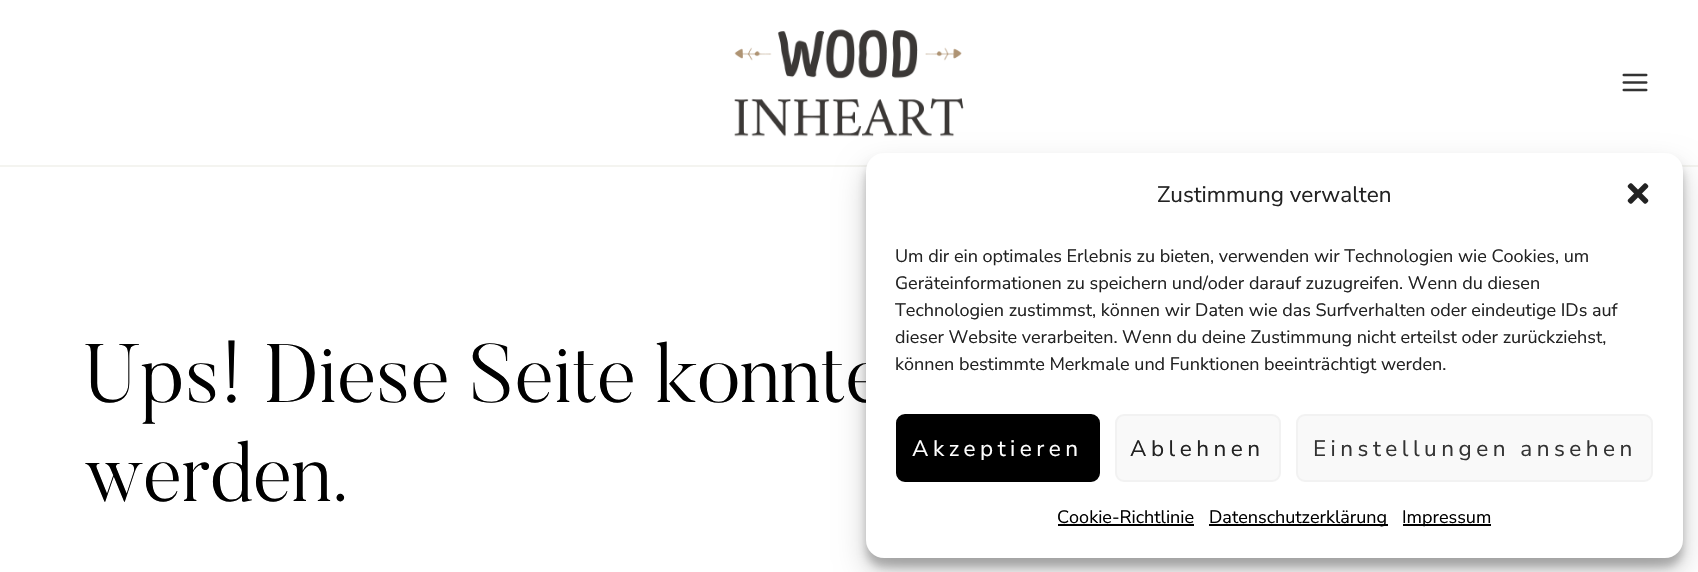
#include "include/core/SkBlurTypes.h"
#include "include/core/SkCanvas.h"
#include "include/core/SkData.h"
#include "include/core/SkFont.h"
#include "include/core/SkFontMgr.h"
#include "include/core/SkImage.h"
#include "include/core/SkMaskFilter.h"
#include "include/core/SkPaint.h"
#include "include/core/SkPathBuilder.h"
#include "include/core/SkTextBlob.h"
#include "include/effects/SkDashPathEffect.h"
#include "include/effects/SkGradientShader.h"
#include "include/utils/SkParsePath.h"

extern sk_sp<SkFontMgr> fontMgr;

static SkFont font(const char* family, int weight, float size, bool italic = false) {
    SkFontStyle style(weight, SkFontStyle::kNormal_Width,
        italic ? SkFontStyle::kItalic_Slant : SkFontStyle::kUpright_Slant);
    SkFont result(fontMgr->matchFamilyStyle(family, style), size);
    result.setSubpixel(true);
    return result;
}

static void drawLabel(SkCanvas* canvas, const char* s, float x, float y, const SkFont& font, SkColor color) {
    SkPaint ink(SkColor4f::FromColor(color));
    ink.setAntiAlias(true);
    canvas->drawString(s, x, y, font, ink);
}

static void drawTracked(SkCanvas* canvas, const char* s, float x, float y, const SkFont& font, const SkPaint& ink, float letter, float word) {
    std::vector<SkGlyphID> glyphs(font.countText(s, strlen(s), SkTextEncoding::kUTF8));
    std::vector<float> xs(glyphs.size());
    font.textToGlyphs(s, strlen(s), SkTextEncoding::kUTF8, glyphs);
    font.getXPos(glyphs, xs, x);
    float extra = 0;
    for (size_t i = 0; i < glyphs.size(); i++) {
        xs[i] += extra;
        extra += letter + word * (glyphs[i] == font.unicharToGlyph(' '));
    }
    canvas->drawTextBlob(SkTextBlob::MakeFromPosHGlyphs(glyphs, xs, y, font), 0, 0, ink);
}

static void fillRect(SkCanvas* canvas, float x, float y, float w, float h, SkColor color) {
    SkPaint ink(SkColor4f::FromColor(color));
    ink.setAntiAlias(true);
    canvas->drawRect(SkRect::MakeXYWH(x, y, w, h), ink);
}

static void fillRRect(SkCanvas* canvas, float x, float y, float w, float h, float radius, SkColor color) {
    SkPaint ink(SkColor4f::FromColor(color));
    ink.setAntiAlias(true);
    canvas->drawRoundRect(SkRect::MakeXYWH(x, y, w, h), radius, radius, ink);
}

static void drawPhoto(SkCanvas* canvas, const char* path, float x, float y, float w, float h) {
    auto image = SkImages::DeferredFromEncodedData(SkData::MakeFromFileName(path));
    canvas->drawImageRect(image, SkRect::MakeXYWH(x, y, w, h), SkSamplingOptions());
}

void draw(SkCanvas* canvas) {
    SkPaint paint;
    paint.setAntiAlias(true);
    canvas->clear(0xFFFFFFFF);
    fillRect(canvas, 0, 165, 1698, 2, 0xFFF4F4F0);
    drawPhoto(canvas, "assets/img1.png", 734, 29, 230, 108);
    drawPhoto(canvas, "assets/img2.png", 1622, 73, 26, 19);
    SkFont font1 = font("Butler", 300, 82.5f);
    drawLabel(canvas, "Ups! Diese Seite konnte", 84, 402, font1, 0xFF000000);
    drawLabel(canvas, "werden.", 84, 501, font1, 0xFF000000);
    paint.setColor(0x3B000000);
    paint.setMaskFilter(SkMaskFilter::MakeBlur(kNormal_SkBlurStyle, 4.5f));
    canvas->drawRoundRect(SkRect::MakeXYWH(866, 162, 817, 405), 18, 18, paint);
    paint.setMaskFilter(nullptr);
    paint.setColor(0x30000000);
    paint.setMaskFilter(SkMaskFilter::MakeBlur(kNormal_SkBlurStyle, 15));
    canvas->drawRoundRect(SkRect::MakeXYWH(866, 168, 817, 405), 18, 18, paint);
    paint.setMaskFilter(nullptr);
    fillRRect(canvas, 866, 153, 817, 405, 18, 0xFFFFFFFF);
    SkFont font2 = font("Nunito Sans", 400, 22.5f);
    drawLabel(canvas, "Zustimmung verwalten", 1157, 202, font2, 0xFF222222);
    drawPhoto(canvas, "assets/img3.png", 1627, 183, 22, 21);
    SkFont font3 = font("Nunito Sans", 400, 18);
    drawLabel(canvas, "Um dir ein optimales Erlebnis zu bieten, verwenden wir Technologien wie Cookies, um", 895, 262, font3, 0xFF222222);
    drawLabel(canvas, "Geräteinformationen zu speichern und/oder darauf zuzugreifen. Wenn du diesen", 895, 289, font3, 0xFF222222);
    drawLabel(canvas, "Technologien zustimmst, können wir Daten wie das Surfverhalten oder eindeutige IDs auf", 895, 316, font3, 0xFF222222);
    drawLabel(canvas, "dieser Website verarbeiten. Wenn du deine Zustimmung nicht erteilst oder zurückziehst,", 895, 343, font3, 0xFF222222);
    drawLabel(canvas, "können bestimmte Merkmale und Funktionen beeinträchtigt werden.", 895, 370, font3, 0xFF222222);
    paint.setColor(0xFF000000);
    canvas->drawRoundRect(SkRect::MakeXYWH(897, 415, 202, 66), 8, 8, paint);
    paint.setStroke(true);
    paint.setStrokeWidth(2);
    canvas->drawRoundRect(SkRect::MakeXYWH(897, 415, 202, 66), 8, 8, paint);
    paint.setStroke(false);
    paint.setColor(0xFFFFFFFF);
    drawTracked(canvas, "Akzeptieren", 912, 456, font2, paint, 4.5f, 0);
    paint.setColor(0xFFF9F9F9);
    canvas->drawRoundRect(SkRect::MakeXYWH(1116, 415, 164, 66), 8, 8, paint);
    paint.setStroke(true);
    paint.setColor(0xFFF2F2F2);
    canvas->drawRoundRect(SkRect::MakeXYWH(1116, 415, 164, 66), 8, 8, paint);
    paint.setStroke(false);
    paint.setColor(0xFF222222);
    drawTracked(canvas, "Ablehnen", 1130, 456, font2, paint, 4.5f, 0);
    paint.setColor(0xFFF9F9F9);
    canvas->drawRoundRect(SkRect::MakeXYWH(1297, 415, 355, 66), 8, 8, paint);
    paint.setStroke(true);
    paint.setColor(0xFFF2F2F2);
    canvas->drawRoundRect(SkRect::MakeXYWH(1297, 415, 355, 66), 8, 8, paint);
    paint.setStroke(false);
    paint.setColor(0xFF333333);
    drawTracked(canvas, "Einstellungen ansehen", 1313, 456, font2, paint, 4.5f, 0);
    drawLabel(canvas, "Cookie-Richtlinie", 1057, 523, font3, 0xFF000000);
    fillRect(canvas, 1058, 524, 136, 2, 0xFF000000);
    fillRect(canvas, 1209, 524, 179, 2, 0xFF000000);
    drawLabel(canvas, "Datenschutzerklärung", 1209, 523, font3, 0xFF000000);
    fillRect(canvas, 1403, 524, 88, 2, 0xFF000000);
    drawLabel(canvas, "Impressum", 1402, 523, font3, 0xFF000000);
}
